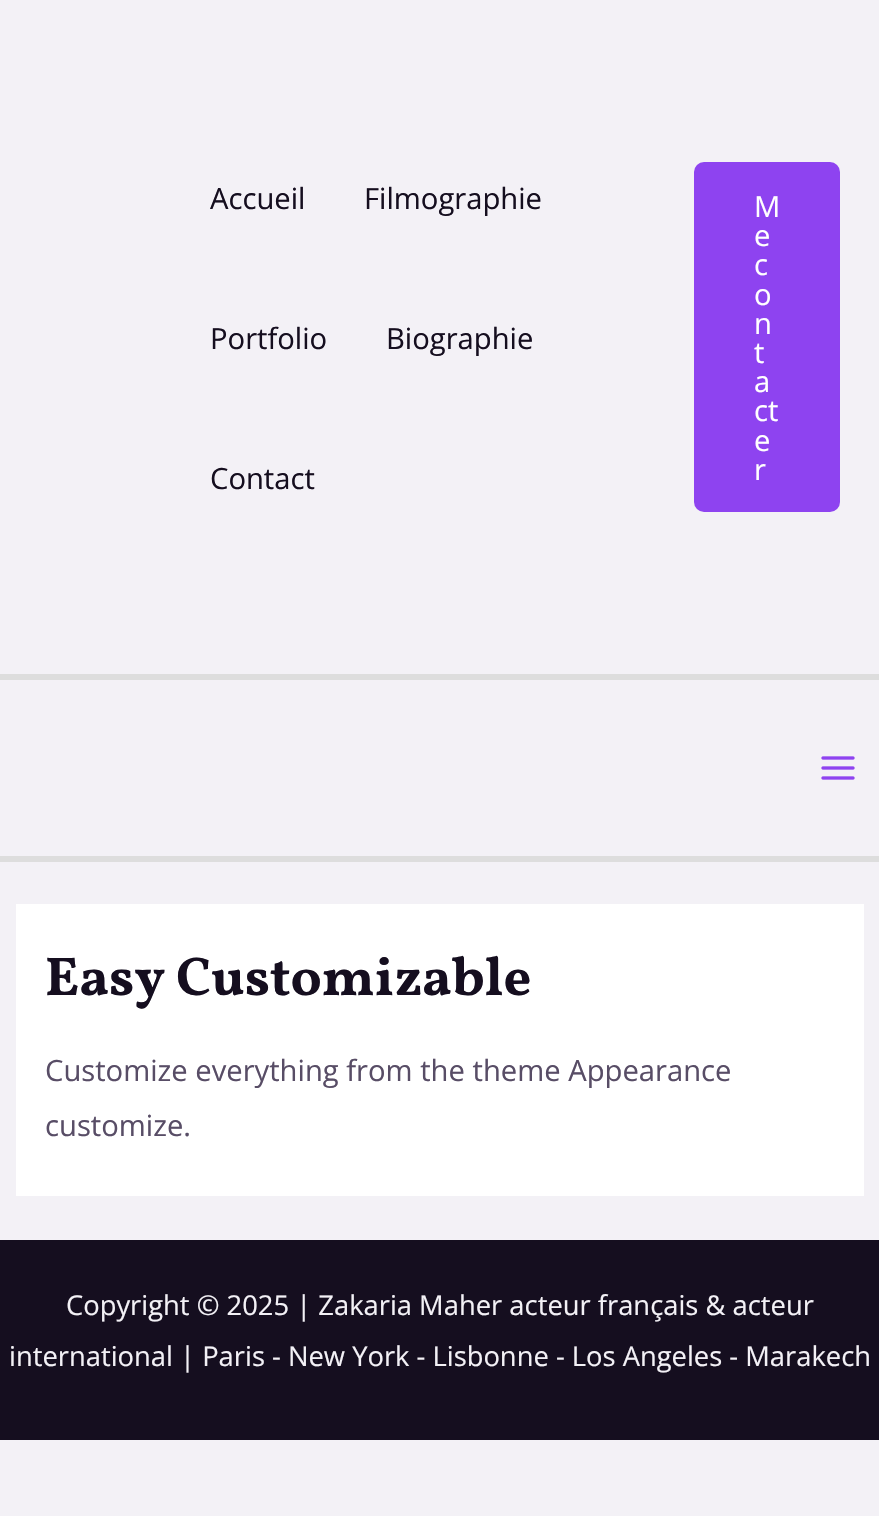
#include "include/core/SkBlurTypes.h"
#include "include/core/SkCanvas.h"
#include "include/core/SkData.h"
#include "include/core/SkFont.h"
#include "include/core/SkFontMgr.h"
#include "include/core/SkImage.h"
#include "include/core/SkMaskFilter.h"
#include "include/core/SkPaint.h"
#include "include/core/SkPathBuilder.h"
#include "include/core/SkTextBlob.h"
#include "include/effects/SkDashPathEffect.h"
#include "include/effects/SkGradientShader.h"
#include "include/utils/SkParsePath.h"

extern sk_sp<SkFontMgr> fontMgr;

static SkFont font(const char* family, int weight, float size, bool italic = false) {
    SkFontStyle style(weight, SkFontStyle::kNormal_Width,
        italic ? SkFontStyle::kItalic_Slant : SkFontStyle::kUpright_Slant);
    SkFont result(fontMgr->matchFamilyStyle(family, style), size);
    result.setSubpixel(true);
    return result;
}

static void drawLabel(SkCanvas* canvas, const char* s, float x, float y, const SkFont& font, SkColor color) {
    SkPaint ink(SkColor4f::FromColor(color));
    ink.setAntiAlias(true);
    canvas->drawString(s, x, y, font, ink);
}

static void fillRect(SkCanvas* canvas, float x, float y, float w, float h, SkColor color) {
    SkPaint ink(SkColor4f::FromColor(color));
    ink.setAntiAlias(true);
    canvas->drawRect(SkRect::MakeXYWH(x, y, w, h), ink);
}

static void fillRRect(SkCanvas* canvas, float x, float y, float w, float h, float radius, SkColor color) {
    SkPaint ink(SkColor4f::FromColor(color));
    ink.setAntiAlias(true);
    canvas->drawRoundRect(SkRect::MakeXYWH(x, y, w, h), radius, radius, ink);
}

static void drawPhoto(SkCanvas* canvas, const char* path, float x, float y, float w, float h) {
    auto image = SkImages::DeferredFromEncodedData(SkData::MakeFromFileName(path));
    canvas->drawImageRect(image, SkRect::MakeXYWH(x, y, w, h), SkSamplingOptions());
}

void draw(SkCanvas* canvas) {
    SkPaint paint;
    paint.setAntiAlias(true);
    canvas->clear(0xFFF3F1F6);
    fillRect(canvas, 0, 674, 879, 6, 0xFFDDDDDD);
    SkFont font1 = font("Open Sans", 400, 29.2f);
    drawLabel(canvas, "Accueil", 210, 209, font1, 0xFF150E1F);
    drawLabel(canvas, "Filmographie", 364, 209, font1, 0xFF150E1F);
    drawLabel(canvas, "Portfolio", 210, 349, font1, 0xFF150E1F);
    drawLabel(canvas, "Biographie", 386, 349, font1, 0xFF150E1F);
    drawLabel(canvas, "Contact", 210, 489, font1, 0xFF150E1F);
    fillRRect(canvas, 694, 162, 146, 350, 10, 0xFF8E43F0);
    drawLabel(canvas, "M", 754, 217, font1, 0xFFFFFFFF);
    drawLabel(canvas, "e", 754, 246, font1, 0xFFFFFFFF);
    drawLabel(canvas, "c", 754, 275, font1, 0xFFFFFFFF);
    drawLabel(canvas, "o", 754, 305, font1, 0xFFFFFFFF);
    drawLabel(canvas, "n", 754, 334, font1, 0xFFFFFFFF);
    drawLabel(canvas, "t", 754, 363, font1, 0xFFFFFFFF);
    drawLabel(canvas, "a", 754, 392, font1, 0xFFFFFFFF);
    drawLabel(canvas, "ct", 754, 421, font1, 0xFFFFFFFF);
    drawLabel(canvas, "e", 754, 451, font1, 0xFFFFFFFF);
    drawLabel(canvas, "r", 754, 480, font1, 0xFFFFFFFF);
    fillRect(canvas, 0, 856, 879, 6, 0xFFDDDDDD);
    drawPhoto(canvas, "assets/img1.png", 821, 756, 34, 24);
    fillRect(canvas, 16, 904, 848, 292, 0xFFFFFFFF);
    SkFont font2 = font("Vollkorn", 700, 54.75f);
    drawLabel(canvas, "Easy Customizable", 45, 995, font2, 0xFF150E1F);
    drawLabel(canvas, "Customize everything from the theme Appearance", 45, 1081, font1, 0xFF584D66);
    drawLabel(canvas, "customize.", 45, 1136, font1, 0xFF584D66);
    fillRect(canvas, 0, 1240, 879, 200, 0xFF150E1F);
    SkFont font3 = font("Open Sans", 400, 27.35f);
    drawLabel(canvas, "Copyright © 2025 | Zakaria Maher acteur français & acteur", 66, 1315, font3, 0xFFF3F1F6);
    drawLabel(canvas, "international | Paris - New York - Lisbonne - Los Angeles - Marakech", 9, 1366, font3, 0xFFF3F1F6);
}
